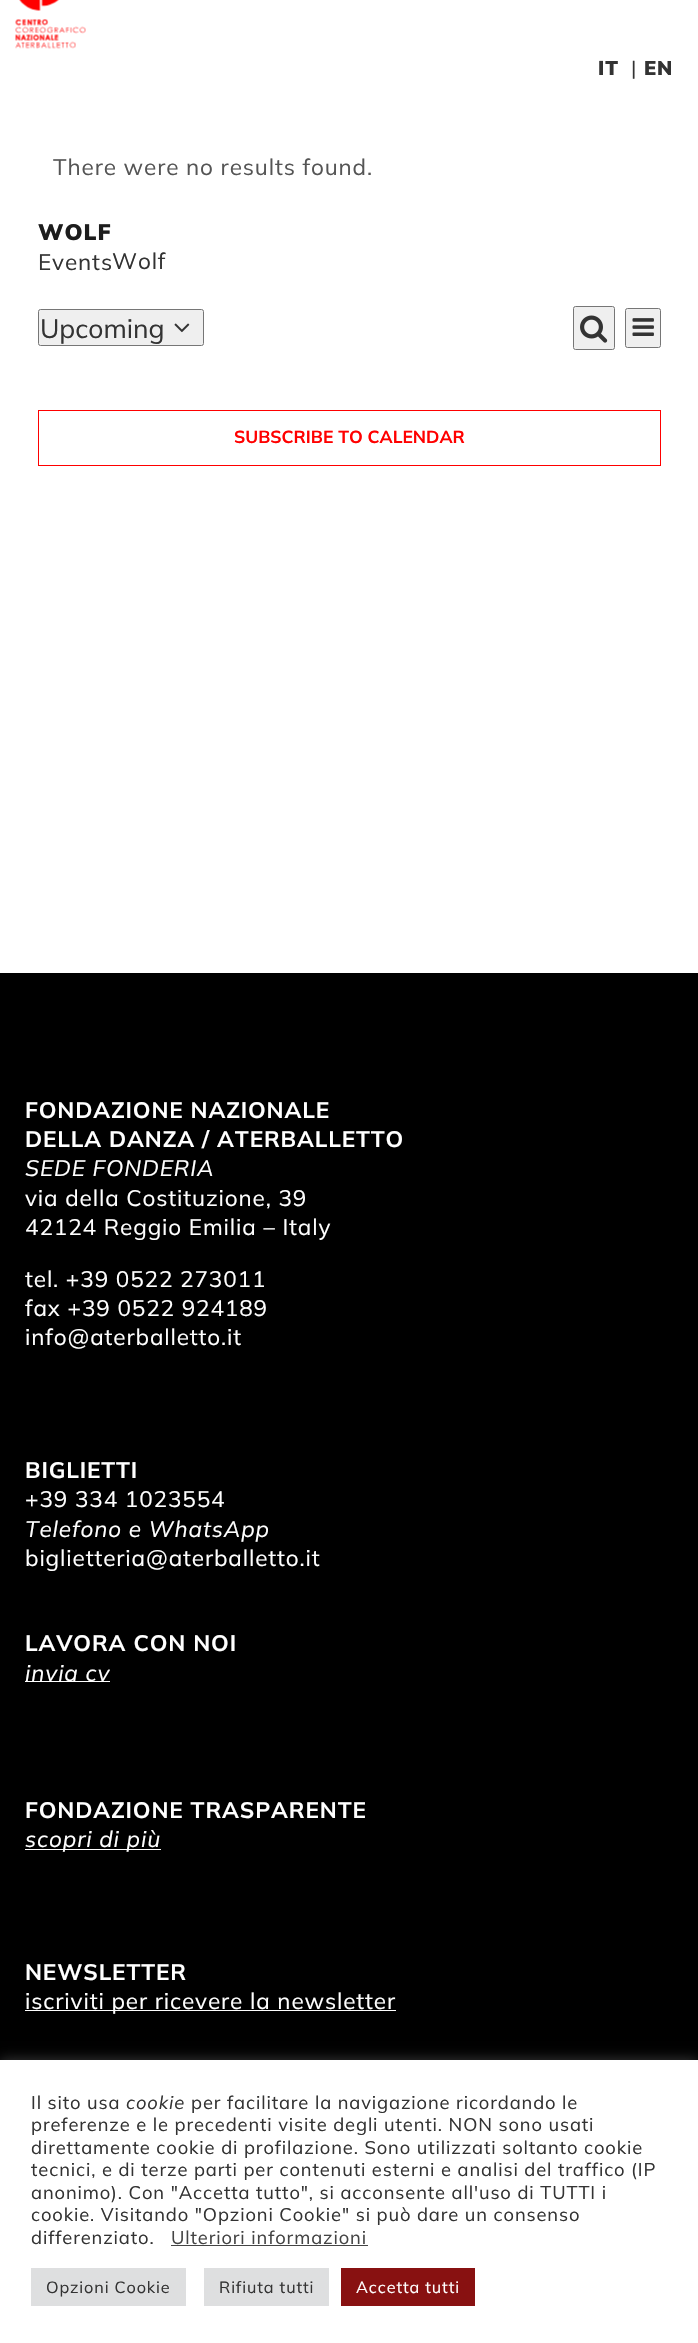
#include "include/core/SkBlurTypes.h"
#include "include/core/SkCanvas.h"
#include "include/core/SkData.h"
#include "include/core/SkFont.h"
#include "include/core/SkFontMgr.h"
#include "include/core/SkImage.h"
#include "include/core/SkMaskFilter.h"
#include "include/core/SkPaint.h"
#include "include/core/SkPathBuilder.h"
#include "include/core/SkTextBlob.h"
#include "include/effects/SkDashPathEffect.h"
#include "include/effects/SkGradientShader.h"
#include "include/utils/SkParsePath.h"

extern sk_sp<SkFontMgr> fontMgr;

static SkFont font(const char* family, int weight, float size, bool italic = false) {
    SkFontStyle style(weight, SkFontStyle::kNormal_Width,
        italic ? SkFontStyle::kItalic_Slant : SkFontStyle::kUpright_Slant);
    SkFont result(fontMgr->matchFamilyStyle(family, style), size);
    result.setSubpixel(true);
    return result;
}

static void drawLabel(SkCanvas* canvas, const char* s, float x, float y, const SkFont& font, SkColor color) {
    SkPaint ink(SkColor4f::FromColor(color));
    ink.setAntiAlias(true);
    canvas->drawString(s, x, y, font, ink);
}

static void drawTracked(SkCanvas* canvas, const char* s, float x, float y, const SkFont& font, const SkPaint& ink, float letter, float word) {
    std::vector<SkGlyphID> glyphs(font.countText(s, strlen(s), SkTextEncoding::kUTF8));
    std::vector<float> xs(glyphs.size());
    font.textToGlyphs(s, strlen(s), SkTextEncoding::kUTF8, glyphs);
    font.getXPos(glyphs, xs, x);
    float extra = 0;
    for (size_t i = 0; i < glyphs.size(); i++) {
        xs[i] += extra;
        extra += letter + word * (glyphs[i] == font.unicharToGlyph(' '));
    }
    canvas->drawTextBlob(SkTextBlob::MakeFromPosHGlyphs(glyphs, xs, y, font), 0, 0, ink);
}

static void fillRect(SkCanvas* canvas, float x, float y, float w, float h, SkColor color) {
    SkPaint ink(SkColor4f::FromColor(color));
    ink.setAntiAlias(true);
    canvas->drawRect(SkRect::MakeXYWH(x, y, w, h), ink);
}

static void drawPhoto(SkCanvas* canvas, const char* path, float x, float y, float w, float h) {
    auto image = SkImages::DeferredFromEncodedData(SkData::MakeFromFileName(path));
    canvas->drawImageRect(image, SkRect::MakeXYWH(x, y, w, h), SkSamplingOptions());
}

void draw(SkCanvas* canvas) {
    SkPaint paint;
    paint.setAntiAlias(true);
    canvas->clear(0xFFFFFFFF);
    drawPhoto(canvas, "assets/img1.png", 15, 0, 71, 49);
    SkFont font1 = font("Mulish", 900, 20);
    paint.setColor(0xFF333333);
    drawTracked(canvas, "IT", 598, 75, font1, paint, 0.88f, 0);
    SkFont font2 = font("Mulish", 400, 20);
    drawTracked(canvas, "|", 631, 75, font2, paint, 0.88f, 0);
    drawTracked(canvas, "EN", 644, 75, font1, paint, 0.88f, 0);
    SkFont font3 = font("Mulish", 400, 22.5f);
    paint.setColor(0xFF555555);
    drawTracked(canvas, "There were no results found.", 53, 175, font3, paint, 0.88f, 0);
    SkFont font4 = font("Mulish", 900, 22.5f);
    paint.setColor(0xFF1D1D1D);
    drawTracked(canvas, "WOLF", 38, 240, font4, paint, 1, 0);
    paint.setColor(0xFF333333);
    drawTracked(canvas, "Events", 38, 270, font3, paint, 0.88f, 0);
    drawTracked(canvas, "Wolf", 112, 269, font3, paint, 0.88f, 0);
    paint.setColor(0xFFEFEFEF);
    canvas->drawRoundRect(SkRect::MakeXYWH(38.5f, 309.5f, 165, 36), 2, 2, paint);
    paint.setStroke(true);
    paint.setStrokeWidth(1);
    paint.setColor(0xFF767676);
    canvas->drawRoundRect(SkRect::MakeXYWH(38.5f, 309.5f, 165, 36), 2, 2, paint);
    SkFont font5 = font("Mulish", 400, 26.5f);
    drawLabel(canvas, "Upcoming", 40, 338, font5, 0xFF333333);
    drawPhoto(canvas, "assets/img2.png", 174, 323, 16, 10);
    paint.setStroke(false);
    paint.setColor(0xFFEFEFEF);
    canvas->drawRoundRect(SkRect::MakeXYWH(573.5f, 306.5f, 41, 43), 2, 2, paint);
    paint.setStroke(true);
    paint.setColor(0xFF767676);
    canvas->drawRoundRect(SkRect::MakeXYWH(573.5f, 306.5f, 41, 43), 2, 2, paint);
    drawPhoto(canvas, "assets/img3.png", 580, 315, 28, 28);
    paint.setStroke(false);
    paint.setColor(0xFFEFEFEF);
    canvas->drawRoundRect(SkRect::MakeXYWH(625.5f, 308.5f, 35, 39), 2, 2, paint);
    paint.setStroke(true);
    paint.setColor(0xFF767676);
    canvas->drawRoundRect(SkRect::MakeXYWH(625.5f, 308.5f, 35, 39), 2, 2, paint);
    drawPhoto(canvas, "assets/img4.png", 632, 318, 22, 18);
    paint.setColor(0xFFFF0000);
    canvas->drawRect(SkRect::MakeXYWH(38.5f, 410.5f, 622, 55), paint);
    SkFont font6 = font("Mulish", 700, 17.5f);
    drawLabel(canvas, "SUBSCRIBE TO CALENDAR", 234, 443, font6, 0xFFFF0000);
    fillRect(canvas, 0, 973, 698, 1087, 0xFF000000);
    SkFont font7 = font("Mulish", 700, 22.5f);
    paint.setStroke(false);
    paint.setColor(0xFFFFFFFF);
    drawTracked(canvas, "FONDAZIONE NAZIONALE", 25, 1118, font7, paint, 0.88f, 0);
    drawTracked(canvas, "DELLA DANZA / ATERBALLETTO", 25, 1147, font7, paint, 0.88f, 0);
    SkFont font8 = font("Mulish", 400, 22.5f, true);
    drawTracked(canvas, "SEDE FONDERIA", 25, 1176, font8, paint, 0.88f, 0);
    drawTracked(canvas, "via della Costituzione, 39", 25, 1206, font3, paint, 0.88f, 0);
    drawTracked(canvas, "42124 Reggio Emilia – Italy", 25, 1235, font3, paint, 0.88f, 0);
    drawTracked(canvas, "tel. +39 0522 273011", 25, 1287, font3, paint, 0.88f, 0);
    drawTracked(canvas, "fax +39 0522 924189", 25, 1316, font3, paint, 0.88f, 0);
    drawTracked(canvas, "info@aterballetto.it", 25, 1345, font3, paint, 0.88f, 0);
    drawTracked(canvas, "BIGLIETTI", 25, 1478, font7, paint, 0.88f, 0);
    drawTracked(canvas, "+39 334 1023554", 25, 1507, font3, paint, 0.88f, 0);
    drawTracked(canvas, "Telefono e WhatsApp", 25, 1537, font8, paint, 0.88f, 0);
    drawTracked(canvas, "biglietteria@aterballetto.it", 25, 1566, font3, paint, 0.88f, 0);
    drawTracked(canvas, "LAVORA CON NOI", 25, 1651, font7, paint, 0.88f, 0);
    fillRect(canvas, 25, 1681, 85, 1, 0xFFFFFFFF);
    drawTracked(canvas, "invia cv", 25, 1681, font8, paint, 0.88f, 0);
    drawTracked(canvas, "FONDAZIONE TRASPARENTE", 25, 1818, font7, paint, 0.88f, 0);
    fillRect(canvas, 25, 1849, 136, 1, 0xFFFFFFFF);
    drawTracked(canvas, "scopri di più", 25, 1847, font8, paint, 0.88f, 0);
    drawTracked(canvas, "NEWSLETTER", 25, 1980, font7, paint, 0.88f, 0);
    fillRect(canvas, 25, 2010, 371, 1, 0xFFFFFFFF);
    drawTracked(canvas, "iscriviti per ricevere la newsletter", 25, 2009, font3, paint, 0.88f, 0);
    paint.setColor(0x4DACABAB);
    paint.setMaskFilter(SkMaskFilter::MakeBlur(kNormal_SkBlurStyle, 6));
    canvas->drawRect(SkRect::MakeXYWH(0, 2059, 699, 284), paint);
    paint.setMaskFilter(nullptr);
    fillRect(canvas, 0, 2060, 698, 283, 0xFFFFFFFF);
    SkFont font9 = font("Mulish", 400, 18.35f);
    paint.setColor(0xFF333333);
    drawTracked(canvas, "Il sito usa", 31, 2109, font9, paint, 0.88f, 0);
    SkFont font10 = font("Mulish", 400, 18.35f, true);
    drawTracked(canvas, "cookie", 126, 2109, font10, paint, 0.88f, 0);
    drawTracked(canvas, "per facilitare la navigazione ricordando le", 191, 2109, font9, paint, 0.88f, 0);
    drawTracked(canvas, "preferenze e le precedenti visite degli utenti. NON sono usati", 31, 2131, font9, paint, 0.88f, 0);
    drawTracked(canvas, "direttamente cookie di profilazione. Sono utilizzati soltanto cookie", 31, 2154, font9, paint, 0.88f, 0);
    drawTracked(canvas, "tecnici, e di terze parti per contenuti esterni e analisi del traffico (IP", 31, 2176, font9, paint, 0.88f, 0);
    drawTracked(canvas, "anonimo). Con \"Accetta tutto\", si acconsente all'uso di TUTTI i", 31, 2199, font9, paint, 0.88f, 0);
    drawTracked(canvas, "cookie. Visitando \"Opzioni Cookie\" si può dare un consenso", 31, 2221, font9, paint, 0.88f, 0);
    drawTracked(canvas, "differenziato.", 31, 2244, font9, paint, 0.88f, 0);
    paint.setColor(0xFF444444);
    drawTracked(canvas, "Ulteriori informazioni", 171, 2244, font9, paint, 0.88f, 0);
    fillRect(canvas, 171, 2245, 197, 1, 0xFF444444);
    fillRect(canvas, 31, 2268, 155, 38, 0xFFDEDFE0);
    SkFont font11 = font("Mulish", 400, 16.25f);
    paint.setColor(0xFF333333);
    drawTracked(canvas, "Opzioni Cookie", 46, 2293, font11, paint, 0.88f, 0);
    fillRect(canvas, 204, 2268, 125, 38, 0xFFDEDFE0);
    drawTracked(canvas, "Rifiuta tutti", 219, 2293, font11, paint, 0.88f, 0);
    fillRect(canvas, 341, 2268, 134, 38, 0xFF881111);
    paint.setColor(0xFFFFFFFF);
    drawTracked(canvas, "Accetta tutti", 356, 2293, font11, paint, 0.88f, 0);
}
